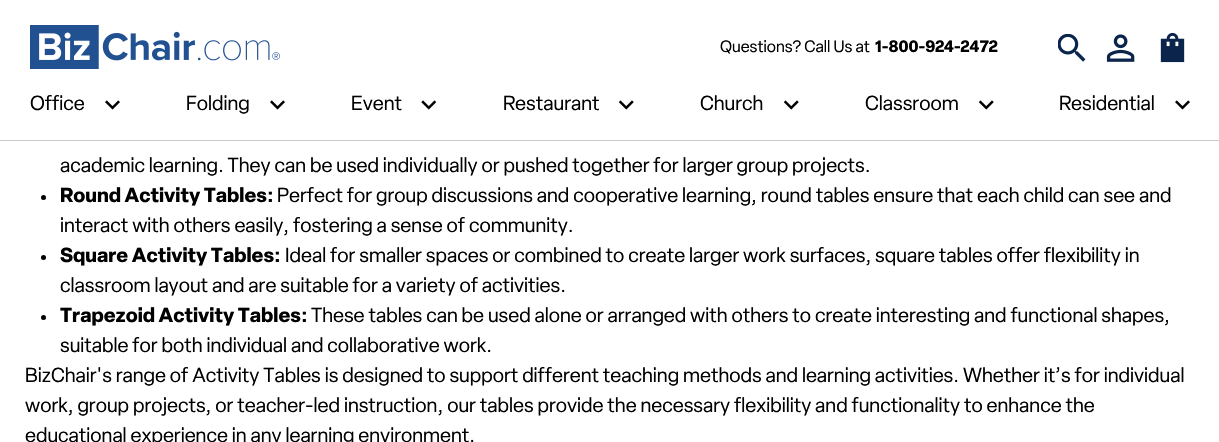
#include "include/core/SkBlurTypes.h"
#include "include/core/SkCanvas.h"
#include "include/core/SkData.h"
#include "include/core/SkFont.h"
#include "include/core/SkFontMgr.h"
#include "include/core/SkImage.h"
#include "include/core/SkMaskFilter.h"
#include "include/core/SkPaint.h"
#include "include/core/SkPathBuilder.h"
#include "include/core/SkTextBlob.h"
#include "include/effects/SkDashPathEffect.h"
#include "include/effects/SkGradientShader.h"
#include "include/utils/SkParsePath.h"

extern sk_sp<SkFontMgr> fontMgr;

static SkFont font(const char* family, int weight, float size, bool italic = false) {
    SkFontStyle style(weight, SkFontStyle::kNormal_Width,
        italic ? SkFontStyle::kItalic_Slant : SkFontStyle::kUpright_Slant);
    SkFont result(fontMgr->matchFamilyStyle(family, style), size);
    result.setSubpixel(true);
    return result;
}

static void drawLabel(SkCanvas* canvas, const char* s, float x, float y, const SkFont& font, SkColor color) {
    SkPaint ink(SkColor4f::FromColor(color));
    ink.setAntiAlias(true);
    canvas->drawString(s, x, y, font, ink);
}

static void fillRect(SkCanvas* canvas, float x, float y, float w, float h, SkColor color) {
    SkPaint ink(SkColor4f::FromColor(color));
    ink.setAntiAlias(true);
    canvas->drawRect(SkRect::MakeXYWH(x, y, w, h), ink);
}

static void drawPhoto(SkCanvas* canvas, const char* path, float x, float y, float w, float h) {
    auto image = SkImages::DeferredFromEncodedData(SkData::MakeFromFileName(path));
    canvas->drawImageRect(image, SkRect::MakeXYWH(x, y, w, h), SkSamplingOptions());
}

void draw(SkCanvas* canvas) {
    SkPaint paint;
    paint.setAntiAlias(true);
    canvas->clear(0xFFFFFFFF);
    fillRect(canvas, 0, 140, 1219, 1, 0xFFCCCAC8);
    drawPhoto(canvas, "assets/img1.png", 30, 25, 250, 44);
    SkFont font1 = font("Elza", 400, 16.25f);
    drawLabel(canvas, "Questions? Call Us at", 720, 52, font1, 0xFF000000);
    SkFont font2 = font("Elza", 700, 16.25f);
    drawLabel(canvas, "1-800-924-2472", 875, 52, font2, 0xFF000000);
    drawPhoto(canvas, "assets/img2.png", 1058, 34, 28, 28);
    drawPhoto(canvas, "assets/img3.png", 1106, 34, 29, 28);
    drawPhoto(canvas, "assets/img4.png", 1160, 32, 25, 31);
    SkFont font3 = font("Elza", 400, 20);
    drawLabel(canvas, "Office", 30, 110, font3, 0xFF000000);
    drawPhoto(canvas, "assets/img5.png", 105, 100, 15, 10);
    drawLabel(canvas, "Folding", 186, 110, font3, 0xFF000000);
    drawPhoto(canvas, "assets/img5.png", 270, 100, 15, 10);
    drawLabel(canvas, "Event", 351, 110, font3, 0xFF000000);
    drawPhoto(canvas, "assets/img6.png", 421, 100, 15, 10);
    drawLabel(canvas, "Restaurant", 503, 110, font3, 0xFF000000);
    drawPhoto(canvas, "assets/img7.png", 619, 100, 15, 10);
    drawLabel(canvas, "Church", 700, 110, font3, 0xFF000000);
    drawPhoto(canvas, "assets/img7.png", 784, 100, 15, 10);
    drawLabel(canvas, "Classroom", 865, 110, font3, 0xFF000000);
    drawPhoto(canvas, "assets/img7.png", 979, 100, 15, 10);
    drawLabel(canvas, "Residential", 1059, 110, font3, 0xFF000000);
    drawPhoto(canvas, "assets/img5.png", 1175, 100, 15, 10);
    drawLabel(canvas, "academic learning. They can be used individually or pushed together for larger group projects.", 60, 172, font3, 0xFF000000);
    paint.setColor(0xFF000000);
    canvas->drawCircle(43.5f, 197.5f, 2.5f, paint);
    SkFont font4 = font("Elza", 700, 20);
    drawLabel(canvas, "Round Activity Tables:", 60, 202, font4, 0xFF000000);
    drawLabel(canvas, "Perfect for group discussions and cooperative learning, round tables ensure that each child can see and", 277, 202, font3, 0xFF000000);
    drawLabel(canvas, "interact with others easily, fostering a sense of community.", 60, 232, font3, 0xFF000000);
    canvas->drawCircle(43.5f, 257.5f, 2.5f, paint);
    drawLabel(canvas, "Square Activity Tables:", 60, 262, font4, 0xFF000000);
    drawLabel(canvas, "Ideal for smaller spaces or combined to create larger work surfaces, square tables offer flexibility in", 285, 262, font3, 0xFF000000);
    drawLabel(canvas, "classroom layout and are suitable for a variety of activities.", 60, 292, font3, 0xFF000000);
    canvas->drawCircle(43.5f, 317.5f, 2.5f, paint);
    drawLabel(canvas, "Trapezoid Activity Tables:", 60, 322, font4, 0xFF000000);
    drawLabel(canvas, "These tables can be used alone or arranged with others to create interesting and functional shapes,", 311, 322, font3, 0xFF000000);
    drawLabel(canvas, "suitable for both individual and collaborative work.", 60, 352, font3, 0xFF000000);
    drawLabel(canvas, "BizChair's range of Activity Tables is designed to support different teaching methods and learning activities. Whether it’s for individual", 25, 382, font3, 0xFF000000);
    drawLabel(canvas, "work, group projects, or teacher-led instruction, our tables provide the necessary flexibility and functionality to enhance the", 25, 412, font3, 0xFF000000);
    drawLabel(canvas, "educational experience in any learning environment.", 25, 442, font3, 0xFF000000);
}
